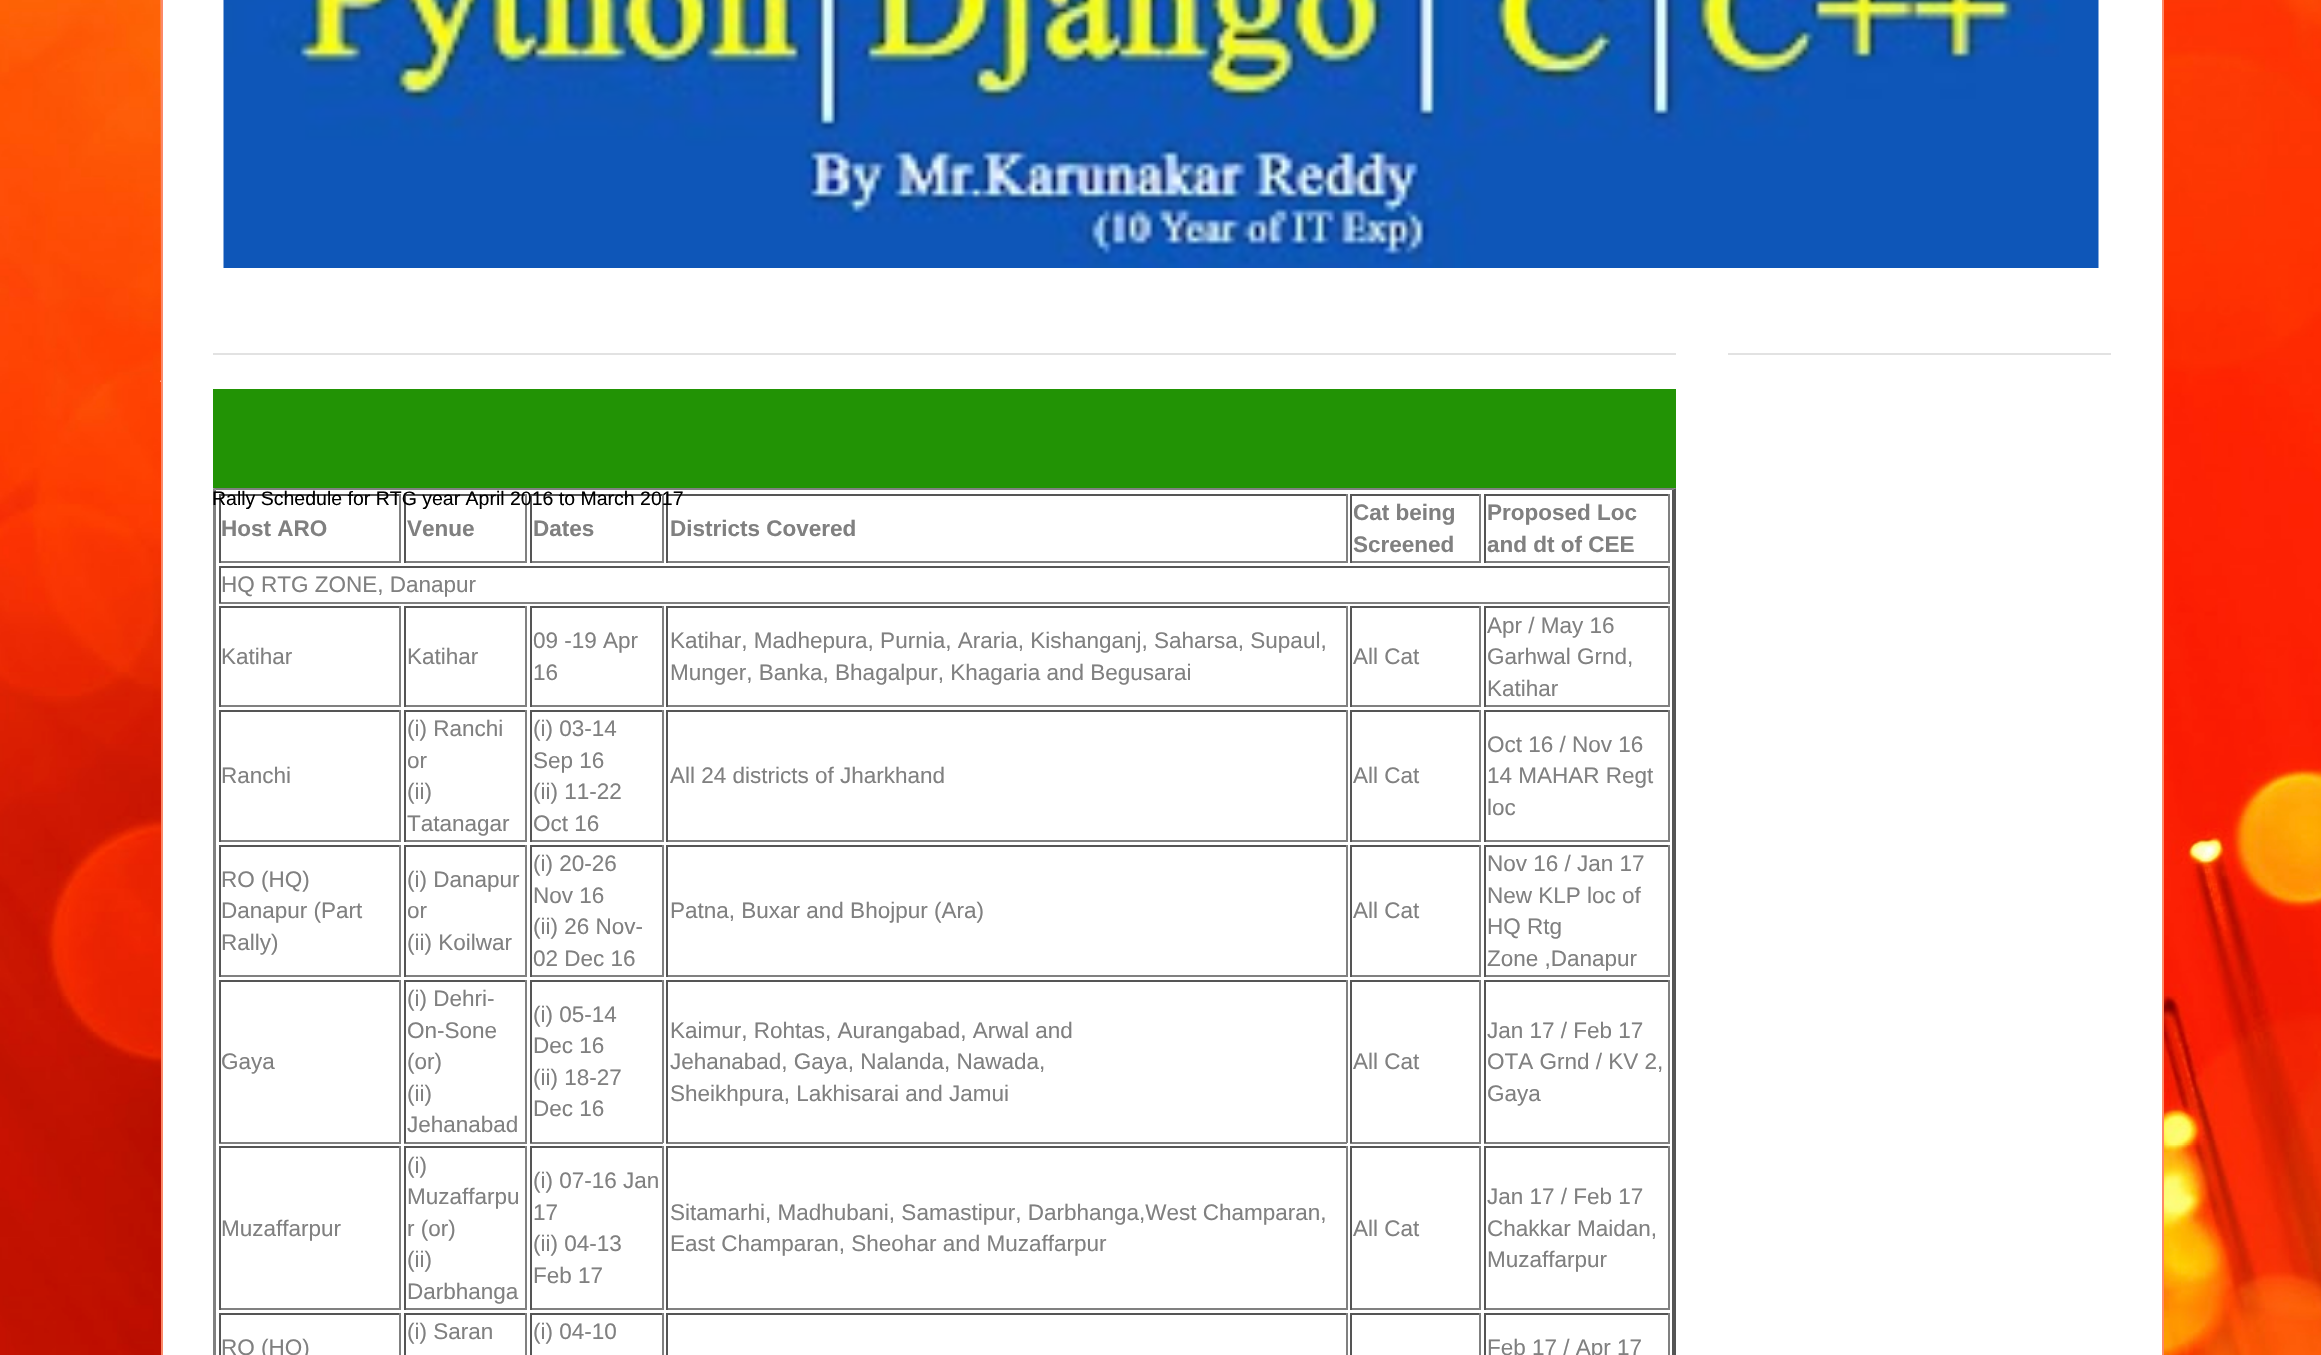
#include "include/core/SkBlurTypes.h"
#include "include/core/SkCanvas.h"
#include "include/core/SkData.h"
#include "include/core/SkFont.h"
#include "include/core/SkFontMgr.h"
#include "include/core/SkImage.h"
#include "include/core/SkMaskFilter.h"
#include "include/core/SkPaint.h"
#include "include/core/SkPathBuilder.h"
#include "include/core/SkTextBlob.h"
#include "include/effects/SkDashPathEffect.h"
#include "include/effects/SkGradientShader.h"
#include "include/utils/SkParsePath.h"

extern sk_sp<SkFontMgr> fontMgr;

static SkFont font(const char* family, int weight, float size, bool italic = false) {
    SkFontStyle style(weight, SkFontStyle::kNormal_Width,
        italic ? SkFontStyle::kItalic_Slant : SkFontStyle::kUpright_Slant);
    SkFont result(fontMgr->matchFamilyStyle(family, style), size);
    result.setSubpixel(true);
    return result;
}

static void drawLabel(SkCanvas* canvas, const char* s, float x, float y, const SkFont& font, SkColor color) {
    SkPaint ink(SkColor4f::FromColor(color));
    ink.setAntiAlias(true);
    canvas->drawString(s, x, y, font, ink);
}

static void fillRect(SkCanvas* canvas, float x, float y, float w, float h, SkColor color) {
    SkPaint ink(SkColor4f::FromColor(color));
    ink.setAntiAlias(true);
    canvas->drawRect(SkRect::MakeXYWH(x, y, w, h), ink);
}

static void drawPhoto(SkCanvas* canvas, const char* path, float x, float y, float w, float h) {
    auto image = SkImages::DeferredFromEncodedData(SkData::MakeFromFileName(path));
    canvas->drawImageRect(image, SkRect::MakeXYWH(x, y, w, h), SkSamplingOptions());
}

static SkPath parsePath(const char* data, bool evenOdd = false) {
    SkPath result = *SkParsePath::FromSVGString(data);
    if (evenOdd) result.setFillType(SkPathFillType::kEvenOdd);
    return result;
}

void draw(SkCanvas* canvas) {
    SkPaint paint;
    paint.setAntiAlias(true);
    canvas->clear(0xFFFFFFFF);
    drawPhoto(canvas, "assets/img1.png", 0, 0, 2321, 1355);
    fillRect(canvas, 163, 0, 1999, 1355, 0xFFFFFFFF);
    drawPhoto(canvas, "assets/img2.png", 160, 0, 1, 382);
    fillRect(canvas, 2162, 0, 2, 1355, 0xFFFC8969);
    fillRect(canvas, 161, 0, 2, 1355, 0xFFFC8969);
    drawPhoto(canvas, "assets/img3.png", 223, 0, 1876, 268);
    fillRect(canvas, 1728, 353, 383, 2, 0xFFE2E2E2);
    fillRect(canvas, 213, 353, 1463, 2, 0xFFE2E2E2);
    fillRect(canvas, 213, 389, 1463, 99, 0xFF229305);
    paint.setColor(0xFF808080);
    canvas->drawPath(parsePath("M213 488H1676L1672 490H216Z"), paint);
    canvas->drawPath(parsePath("M213 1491V488L216 490V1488Z"), paint);
    fillRect(canvas, 219, 494, 182, 2, 0xFF555555);
    fillRect(canvas, 399, 494, 2, 69, 0xFF808080);
    fillRect(canvas, 219, 561, 182, 2, 0xFF808080);
    fillRect(canvas, 219, 494, 2, 69, 0xFF555555);
    fillRect(canvas, 404, 494, 123, 2, 0xFF555555);
    fillRect(canvas, 525, 494, 2, 69, 0xFF808080);
    fillRect(canvas, 404, 561, 123, 2, 0xFF808080);
    fillRect(canvas, 404, 494, 2, 69, 0xFF555555);
    fillRect(canvas, 530, 494, 133, 2, 0xFF555555);
    fillRect(canvas, 662, 494, 2, 69, 0xFF808080);
    fillRect(canvas, 530, 561, 133, 2, 0xFF808080);
    fillRect(canvas, 530, 494, 2, 69, 0xFF555555);
    fillRect(canvas, 666, 494, 681, 2, 0xFF555555);
    fillRect(canvas, 1346, 494, 2, 69, 0xFF808080);
    fillRect(canvas, 666, 561, 681, 2, 0xFF808080);
    fillRect(canvas, 666, 494, 2, 69, 0xFF555555);
    SkFont font1 = font("Liberation Sans", 400, 19.5f);
    drawLabel(canvas, "Rally Schedule for RTG year April 2016 to March 2017", 212, 505, font1, 0xFF000000);
    paint.setColor(0xFF555555);
    canvas->drawPath(parsePath("M1676 488V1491L1672 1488V490Z"), paint);
    SkFont font2 = font("Liberation Sans", 700, 22.5f);
    drawLabel(canvas, "Host ARO", 221, 536, font2, 0xFF808080);
    drawLabel(canvas, "Venue", 407, 536, font2, 0xFF808080);
    drawLabel(canvas, "Dates", 533, 536, font2, 0xFF808080);
    drawLabel(canvas, "Districts Covered", 670, 536, font2, 0xFF808080);
    fillRect(canvas, 1350, 494, 131, 2, 0xFF555555);
    fillRect(canvas, 1479, 494, 2, 69, 0xFF808080);
    fillRect(canvas, 1350, 561, 131, 2, 0xFF808080);
    fillRect(canvas, 1350, 494, 2, 69, 0xFF555555);
    drawLabel(canvas, "Cat being", 1353, 520, font2, 0xFF808080);
    drawLabel(canvas, "Screened", 1353, 552, font2, 0xFF808080);
    fillRect(canvas, 1484, 494, 186, 2, 0xFF555555);
    fillRect(canvas, 1668, 494, 2, 69, 0xFF808080);
    fillRect(canvas, 1484, 561, 186, 2, 0xFF808080);
    fillRect(canvas, 1484, 494, 2, 69, 0xFF555555);
    drawLabel(canvas, "Proposed Loc", 1487, 520, font2, 0xFF808080);
    drawLabel(canvas, "and dt of CEE", 1487, 552, font2, 0xFF808080);
    fillRect(canvas, 219, 566, 1451, 2, 0xFF555555);
    fillRect(canvas, 1668, 566, 2, 37, 0xFF808080);
    fillRect(canvas, 219, 602, 1451, 2, 0xFF808080);
    fillRect(canvas, 219, 566, 2, 37, 0xFF555555);
    SkFont font3 = font("Liberation Sans", 400, 22.5f);
    drawLabel(canvas, "HQ RTG ZONE, Danapur", 221, 592, font3, 0xFF808080);
    fillRect(canvas, 219, 606, 182, 2, 0xFF555555);
    fillRect(canvas, 399, 606, 2, 101, 0xFF808080);
    fillRect(canvas, 219, 705, 182, 2, 0xFF808080);
    fillRect(canvas, 219, 606, 2, 101, 0xFF555555);
    drawLabel(canvas, "Katihar", 221, 664, font3, 0xFF808080);
    fillRect(canvas, 404, 606, 123, 2, 0xFF555555);
    fillRect(canvas, 525, 606, 2, 101, 0xFF808080);
    fillRect(canvas, 404, 705, 123, 2, 0xFF808080);
    fillRect(canvas, 404, 606, 2, 101, 0xFF555555);
    drawLabel(canvas, "Katihar", 407, 664, font3, 0xFF808080);
    fillRect(canvas, 530, 606, 133, 2, 0xFF555555);
    fillRect(canvas, 662, 606, 2, 101, 0xFF808080);
    fillRect(canvas, 530, 705, 133, 2, 0xFF808080);
    fillRect(canvas, 530, 606, 2, 101, 0xFF555555);
    drawLabel(canvas, "09 -19 Apr", 533, 648, font3, 0xFF808080);
    drawLabel(canvas, "16", 533, 680, font3, 0xFF808080);
    fillRect(canvas, 666, 606, 681, 2, 0xFF555555);
    fillRect(canvas, 1346, 606, 2, 101, 0xFF808080);
    fillRect(canvas, 666, 705, 681, 2, 0xFF808080);
    fillRect(canvas, 666, 606, 2, 101, 0xFF555555);
    drawLabel(canvas, "Katihar, Madhepura, Purnia, Araria, Kishanganj, Saharsa, Supaul,", 670, 648, font3, 0xFF808080);
    drawLabel(canvas, "Munger, Banka, Bhagalpur, Khagaria and Begusarai", 670, 680, font3, 0xFF808080);
    fillRect(canvas, 1350, 606, 131, 2, 0xFF555555);
    fillRect(canvas, 1479, 606, 2, 101, 0xFF808080);
    fillRect(canvas, 1350, 705, 131, 2, 0xFF808080);
    fillRect(canvas, 1350, 606, 2, 101, 0xFF555555);
    drawLabel(canvas, "All Cat", 1353, 664, font3, 0xFF808080);
    fillRect(canvas, 1484, 606, 186, 2, 0xFF555555);
    fillRect(canvas, 1668, 606, 2, 101, 0xFF808080);
    fillRect(canvas, 1484, 705, 186, 2, 0xFF808080);
    fillRect(canvas, 1484, 606, 2, 101, 0xFF555555);
    drawLabel(canvas, "Apr / May 16", 1487, 633, font3, 0xFF808080);
    drawLabel(canvas, "Garhwal Grnd,", 1487, 664, font3, 0xFF808080);
    drawLabel(canvas, "Katihar", 1487, 696, font3, 0xFF808080);
    fillRect(canvas, 219, 710, 182, 2, 0xFF555555);
    fillRect(canvas, 399, 710, 2, 132, 0xFF808080);
    fillRect(canvas, 219, 840, 182, 2, 0xFF808080);
    fillRect(canvas, 219, 710, 2, 132, 0xFF555555);
    drawLabel(canvas, "Ranchi", 221, 783, font3, 0xFF808080);
    fillRect(canvas, 404, 710, 123, 2, 0xFF555555);
    fillRect(canvas, 525, 710, 2, 132, 0xFF808080);
    fillRect(canvas, 404, 840, 123, 2, 0xFF808080);
    fillRect(canvas, 404, 710, 2, 132, 0xFF555555);
    drawLabel(canvas, "(i) Ranchi", 407, 736, font3, 0xFF808080);
    drawLabel(canvas, "or", 407, 768, font3, 0xFF808080);
    drawLabel(canvas, "(ii)", 407, 799, font3, 0xFF808080);
    drawLabel(canvas, "Tatanagar", 407, 831, font3, 0xFF808080);
    fillRect(canvas, 530, 710, 133, 2, 0xFF555555);
    fillRect(canvas, 662, 710, 2, 132, 0xFF808080);
    fillRect(canvas, 530, 840, 133, 2, 0xFF808080);
    fillRect(canvas, 530, 710, 2, 132, 0xFF555555);
    drawLabel(canvas, "(i) 03-14", 533, 736, font3, 0xFF808080);
    drawLabel(canvas, "Sep 16", 533, 768, font3, 0xFF808080);
    drawLabel(canvas, "(ii) 11-22", 533, 799, font3, 0xFF808080);
    drawLabel(canvas, "Oct 16", 533, 831, font3, 0xFF808080);
    fillRect(canvas, 666, 710, 681, 2, 0xFF555555);
    fillRect(canvas, 1346, 710, 2, 132, 0xFF808080);
    fillRect(canvas, 666, 840, 681, 2, 0xFF808080);
    fillRect(canvas, 666, 710, 2, 132, 0xFF555555);
    drawLabel(canvas, "All 24 districts of Jharkhand", 670, 783, font3, 0xFF808080);
    fillRect(canvas, 1350, 710, 131, 2, 0xFF555555);
    fillRect(canvas, 1479, 710, 2, 132, 0xFF808080);
    fillRect(canvas, 1350, 840, 131, 2, 0xFF808080);
    fillRect(canvas, 1350, 710, 2, 132, 0xFF555555);
    drawLabel(canvas, "All Cat", 1353, 783, font3, 0xFF808080);
    fillRect(canvas, 1484, 710, 186, 2, 0xFF555555);
    fillRect(canvas, 1668, 710, 2, 132, 0xFF808080);
    fillRect(canvas, 1484, 840, 186, 2, 0xFF808080);
    fillRect(canvas, 1484, 710, 2, 132, 0xFF555555);
    drawLabel(canvas, "Oct 16 / Nov 16", 1487, 752, font3, 0xFF808080);
    drawLabel(canvas, "14 MAHAR Regt", 1487, 783, font3, 0xFF808080);
    drawLabel(canvas, "loc", 1487, 815, font3, 0xFF808080);
    fillRect(canvas, 219, 845, 182, 2, 0xFF555555);
    fillRect(canvas, 399, 845, 2, 132, 0xFF808080);
    fillRect(canvas, 219, 975, 182, 2, 0xFF808080);
    fillRect(canvas, 219, 845, 2, 132, 0xFF555555);
    drawLabel(canvas, "RO (HQ)", 221, 887, font3, 0xFF808080);
    drawLabel(canvas, "Danapur (Part", 221, 918, font3, 0xFF808080);
    drawLabel(canvas, "Rally)", 221, 950, font3, 0xFF808080);
    fillRect(canvas, 404, 845, 123, 2, 0xFF555555);
    fillRect(canvas, 525, 845, 2, 132, 0xFF808080);
    fillRect(canvas, 404, 975, 123, 2, 0xFF808080);
    fillRect(canvas, 404, 845, 2, 132, 0xFF555555);
    drawLabel(canvas, "(i) Danapur", 407, 887, font3, 0xFF808080);
    drawLabel(canvas, "or", 407, 918, font3, 0xFF808080);
    drawLabel(canvas, "(ii) Koilwar", 407, 950, font3, 0xFF808080);
    fillRect(canvas, 530, 845, 133, 2, 0xFF555555);
    fillRect(canvas, 662, 845, 2, 132, 0xFF808080);
    fillRect(canvas, 530, 975, 133, 2, 0xFF808080);
    fillRect(canvas, 530, 845, 2, 132, 0xFF555555);
    drawLabel(canvas, "(i) 20-26", 533, 871, font3, 0xFF808080);
    drawLabel(canvas, "Nov 16", 533, 903, font3, 0xFF808080);
    drawLabel(canvas, "(ii) 26 Nov-", 533, 934, font3, 0xFF808080);
    drawLabel(canvas, "02 Dec 16", 533, 966, font3, 0xFF808080);
    fillRect(canvas, 666, 845, 681, 2, 0xFF555555);
    fillRect(canvas, 1346, 845, 2, 132, 0xFF808080);
    fillRect(canvas, 666, 975, 681, 2, 0xFF808080);
    fillRect(canvas, 666, 845, 2, 132, 0xFF555555);
    drawLabel(canvas, "Patna, Buxar and Bhojpur (Ara)", 670, 918, font3, 0xFF808080);
    fillRect(canvas, 1350, 845, 131, 2, 0xFF555555);
    fillRect(canvas, 1479, 845, 2, 132, 0xFF808080);
    fillRect(canvas, 1350, 975, 131, 2, 0xFF808080);
    fillRect(canvas, 1350, 845, 2, 132, 0xFF555555);
    drawLabel(canvas, "All Cat", 1353, 918, font3, 0xFF808080);
    fillRect(canvas, 1484, 845, 186, 2, 0xFF555555);
    fillRect(canvas, 1668, 845, 2, 132, 0xFF808080);
    fillRect(canvas, 1484, 975, 186, 2, 0xFF808080);
    fillRect(canvas, 1484, 845, 2, 132, 0xFF555555);
    drawLabel(canvas, "Nov 16 / Jan 17", 1487, 871, font3, 0xFF808080);
    drawLabel(canvas, "New KLP loc of", 1487, 903, font3, 0xFF808080);
    drawLabel(canvas, "HQ Rtg", 1487, 934, font3, 0xFF808080);
    drawLabel(canvas, "Zone ,Danapur", 1487, 966, font3, 0xFF808080);
    fillRect(canvas, 219, 980, 182, 2, 0xFF555555);
    fillRect(canvas, 399, 980, 2, 163, 0xFF808080);
    fillRect(canvas, 219, 1142, 182, 2, 0xFF808080);
    fillRect(canvas, 219, 980, 2, 163, 0xFF555555);
    drawLabel(canvas, "Gaya", 221, 1069, font3, 0xFF808080);
    fillRect(canvas, 404, 980, 123, 2, 0xFF555555);
    fillRect(canvas, 525, 980, 2, 163, 0xFF808080);
    fillRect(canvas, 404, 1142, 123, 2, 0xFF808080);
    fillRect(canvas, 404, 980, 2, 163, 0xFF555555);
    drawLabel(canvas, "(i) Dehri-", 407, 1006, font3, 0xFF808080);
    drawLabel(canvas, "On-Sone", 407, 1038, font3, 0xFF808080);
    drawLabel(canvas, "(or)", 407, 1069, font3, 0xFF808080);
    drawLabel(canvas, "(ii)", 407, 1101, font3, 0xFF808080);
    drawLabel(canvas, "Jehanabad", 407, 1132, font3, 0xFF808080);
    fillRect(canvas, 530, 980, 133, 2, 0xFF555555);
    fillRect(canvas, 662, 980, 2, 163, 0xFF808080);
    fillRect(canvas, 530, 1142, 133, 2, 0xFF808080);
    fillRect(canvas, 530, 980, 2, 163, 0xFF555555);
    drawLabel(canvas, "(i) 05-14", 533, 1022, font3, 0xFF808080);
    drawLabel(canvas, "Dec 16", 533, 1053, font3, 0xFF808080);
    drawLabel(canvas, "(ii) 18-27", 533, 1085, font3, 0xFF808080);
    drawLabel(canvas, "Dec 16", 533, 1116, font3, 0xFF808080);
    fillRect(canvas, 666, 980, 681, 2, 0xFF555555);
    fillRect(canvas, 1346, 980, 2, 163, 0xFF808080);
    fillRect(canvas, 666, 1142, 681, 2, 0xFF808080);
    fillRect(canvas, 666, 980, 2, 163, 0xFF555555);
    drawLabel(canvas, "Kaimur, Rohtas, Aurangabad, Arwal and", 670, 1038, font3, 0xFF808080);
    drawLabel(canvas, "Jehanabad, Gaya, Nalanda, Nawada,", 670, 1069, font3, 0xFF808080);
    drawLabel(canvas, "Sheikhpura, Lakhisarai and Jamui", 670, 1101, font3, 0xFF808080);
    fillRect(canvas, 1350, 980, 131, 2, 0xFF555555);
    fillRect(canvas, 1479, 980, 2, 163, 0xFF808080);
    fillRect(canvas, 1350, 1142, 131, 2, 0xFF808080);
    fillRect(canvas, 1350, 980, 2, 163, 0xFF555555);
    drawLabel(canvas, "All Cat", 1353, 1069, font3, 0xFF808080);
    fillRect(canvas, 1484, 980, 186, 2, 0xFF555555);
    fillRect(canvas, 1668, 980, 2, 163, 0xFF808080);
    fillRect(canvas, 1484, 1142, 186, 2, 0xFF808080);
    fillRect(canvas, 1484, 980, 2, 163, 0xFF555555);
    drawLabel(canvas, "Jan 17 / Feb 17", 1487, 1038, font3, 0xFF808080);
    drawLabel(canvas, "OTA Grnd / KV 2,", 1487, 1069, font3, 0xFF808080);
    drawLabel(canvas, "Gaya", 1487, 1101, font3, 0xFF808080);
    fillRect(canvas, 219, 1146, 182, 2, 0xFF555555);
    fillRect(canvas, 399, 1146, 2, 164, 0xFF808080);
    fillRect(canvas, 219, 1308, 182, 2, 0xFF808080);
    fillRect(canvas, 219, 1146, 2, 164, 0xFF555555);
    drawLabel(canvas, "Muzaffarpur", 221, 1236, font3, 0xFF808080);
    fillRect(canvas, 404, 1146, 123, 2, 0xFF555555);
    fillRect(canvas, 525, 1146, 2, 164, 0xFF808080);
    fillRect(canvas, 404, 1308, 123, 2, 0xFF808080);
    fillRect(canvas, 404, 1146, 2, 164, 0xFF555555);
    drawLabel(canvas, "(i)", 407, 1173, font3, 0xFF808080);
    drawLabel(canvas, "Muzaffarpu", 407, 1204, font3, 0xFF808080);
    drawLabel(canvas, "r (or)", 407, 1236, font3, 0xFF808080);
    drawLabel(canvas, "(ii)", 407, 1267, font3, 0xFF808080);
    drawLabel(canvas, "Darbhanga", 407, 1299, font3, 0xFF808080);
    fillRect(canvas, 530, 1146, 133, 2, 0xFF555555);
    fillRect(canvas, 662, 1146, 2, 164, 0xFF808080);
    fillRect(canvas, 530, 1308, 133, 2, 0xFF808080);
    fillRect(canvas, 530, 1146, 2, 164, 0xFF555555);
    drawLabel(canvas, "(i) 07-16 Jan", 533, 1188, font3, 0xFF808080);
    drawLabel(canvas, "17", 533, 1220, font3, 0xFF808080);
    drawLabel(canvas, "(ii) 04-13", 533, 1251, font3, 0xFF808080);
    drawLabel(canvas, "Feb 17", 533, 1283, font3, 0xFF808080);
    fillRect(canvas, 666, 1146, 681, 2, 0xFF555555);
    fillRect(canvas, 1346, 1146, 2, 164, 0xFF808080);
    fillRect(canvas, 666, 1308, 681, 2, 0xFF808080);
    fillRect(canvas, 666, 1146, 2, 164, 0xFF555555);
    drawLabel(canvas, "Sitamarhi, Madhubani, Samastipur, Darbhanga,West Champaran,", 670, 1220, font3, 0xFF808080);
    drawLabel(canvas, "East Champaran, Sheohar and Muzaffarpur", 670, 1251, font3, 0xFF808080);
    fillRect(canvas, 1350, 1146, 131, 2, 0xFF555555);
    fillRect(canvas, 1479, 1146, 2, 164, 0xFF808080);
    fillRect(canvas, 1350, 1308, 131, 2, 0xFF808080);
    fillRect(canvas, 1350, 1146, 2, 164, 0xFF555555);
    drawLabel(canvas, "All Cat", 1353, 1236, font3, 0xFF808080);
    fillRect(canvas, 1484, 1146, 186, 2, 0xFF555555);
    fillRect(canvas, 1668, 1146, 2, 164, 0xFF808080);
    fillRect(canvas, 1484, 1308, 186, 2, 0xFF808080);
    fillRect(canvas, 1484, 1146, 2, 164, 0xFF555555);
    drawLabel(canvas, "Jan 17 / Feb 17", 1487, 1204, font3, 0xFF808080);
    drawLabel(canvas, "Chakkar Maidan,", 1487, 1236, font3, 0xFF808080);
    drawLabel(canvas, "Muzaffarpur", 1487, 1267, font3, 0xFF808080);
    fillRect(canvas, 404, 1313, 123, 2, 0xFF555555);
    fillRect(canvas, 525, 1313, 2, 42, 0xFF808080);
    fillRect(canvas, 404, 1313, 2, 42, 0xFF555555);
    drawLabel(canvas, "(i) Saran", 407, 1339, font3, 0xFF808080);
    fillRect(canvas, 530, 1313, 133, 2, 0xFF555555);
    fillRect(canvas, 662, 1313, 2, 42, 0xFF808080);
    fillRect(canvas, 530, 1313, 2, 42, 0xFF555555);
    drawLabel(canvas, "(i) 04-10", 533, 1339, font3, 0xFF808080);
    fillRect(canvas, 666, 1313, 681, 2, 0xFF555555);
    fillRect(canvas, 1346, 1313, 2, 42, 0xFF808080);
    fillRect(canvas, 666, 1313, 2, 42, 0xFF555555);
    fillRect(canvas, 1350, 1313, 131, 2, 0xFF555555);
    fillRect(canvas, 1479, 1313, 2, 42, 0xFF808080);
    fillRect(canvas, 1350, 1313, 2, 42, 0xFF555555);
    fillRect(canvas, 219, 1313, 182, 2, 0xFF555555);
    fillRect(canvas, 399, 1313, 2, 42, 0xFF808080);
    fillRect(canvas, 219, 1313, 2, 42, 0xFF555555);
    drawLabel(canvas, "RO (HQ)", 221, 1355, font3, 0xFF808080);
    fillRect(canvas, 1484, 1313, 186, 2, 0xFF555555);
    fillRect(canvas, 1668, 1313, 2, 42, 0xFF808080);
    fillRect(canvas, 1484, 1313, 2, 42, 0xFF555555);
    drawLabel(canvas, "Feb 17 / Apr 17", 1487, 1355, font3, 0xFF808080);
}
